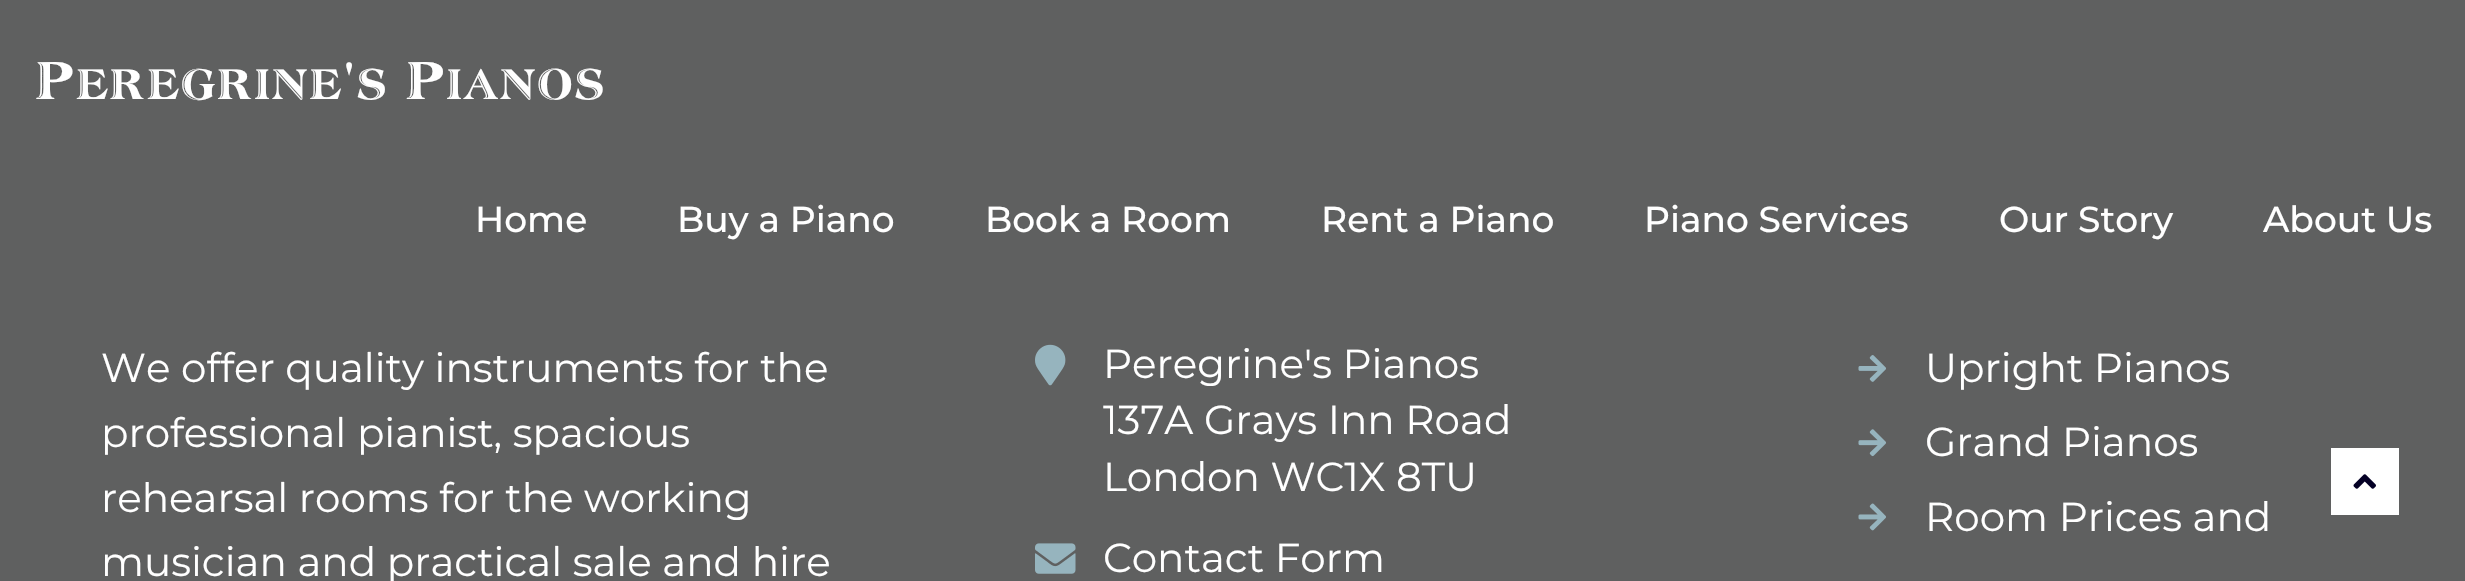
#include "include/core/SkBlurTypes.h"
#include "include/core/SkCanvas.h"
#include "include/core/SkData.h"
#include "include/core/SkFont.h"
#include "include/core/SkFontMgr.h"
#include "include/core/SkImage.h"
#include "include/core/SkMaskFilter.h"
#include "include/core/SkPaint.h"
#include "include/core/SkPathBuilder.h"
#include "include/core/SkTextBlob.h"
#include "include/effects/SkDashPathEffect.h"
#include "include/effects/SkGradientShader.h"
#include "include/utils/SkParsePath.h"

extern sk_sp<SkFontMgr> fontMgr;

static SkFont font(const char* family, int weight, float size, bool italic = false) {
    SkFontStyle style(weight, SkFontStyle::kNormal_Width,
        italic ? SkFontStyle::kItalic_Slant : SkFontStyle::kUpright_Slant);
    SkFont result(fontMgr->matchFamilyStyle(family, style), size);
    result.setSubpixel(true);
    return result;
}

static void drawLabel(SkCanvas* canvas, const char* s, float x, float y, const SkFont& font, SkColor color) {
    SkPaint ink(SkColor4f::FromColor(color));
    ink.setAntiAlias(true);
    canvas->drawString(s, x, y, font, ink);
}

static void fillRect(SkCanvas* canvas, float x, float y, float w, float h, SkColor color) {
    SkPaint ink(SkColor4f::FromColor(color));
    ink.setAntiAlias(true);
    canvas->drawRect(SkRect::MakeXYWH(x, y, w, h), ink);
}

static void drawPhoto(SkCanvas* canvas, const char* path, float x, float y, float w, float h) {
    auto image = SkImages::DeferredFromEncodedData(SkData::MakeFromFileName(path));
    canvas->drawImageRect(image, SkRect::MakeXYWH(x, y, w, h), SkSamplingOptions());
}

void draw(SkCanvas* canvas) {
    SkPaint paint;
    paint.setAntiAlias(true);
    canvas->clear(0xFF5F6060);
    SkFont font1 = font("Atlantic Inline", 500, 51.75f);
    drawLabel(canvas, "Peregrine's Pianos", 34, 99, font1, 0xFFFFFFFF);
    SkFont font2 = font("Montserrat", 500, 36);
    drawLabel(canvas, "Home", 475, 232, font2, 0xFFFFFFFF);
    drawLabel(canvas, "Buy a Piano", 677, 232, font2, 0xFFFFFFFF);
    drawLabel(canvas, "Book a Room", 985, 232, font2, 0xFFFFFFFF);
    drawLabel(canvas, "Rent a Piano", 1321, 232, font2, 0xFFFFFFFF);
    drawLabel(canvas, "Piano Services", 1644, 232, font2, 0xFFFFFFFF);
    drawLabel(canvas, "Our Story", 1999, 232, font2, 0xFFFFFFFF);
    drawLabel(canvas, "About Us", 2263, 232, font2, 0xFFFFFFFF);
    SkFont font3 = font("Montserrat", 400, 40.5f);
    drawLabel(canvas, "We offer quality instruments for the", 101, 382, font3, 0xFFFFFFFF);
    drawLabel(canvas, "professional pianist, spacious", 101, 447, font3, 0xFFFFFFFF);
    drawLabel(canvas, "rehearsal rooms for the working", 101, 512, font3, 0xFFFFFFFF);
    drawLabel(canvas, "musician and practical sale and hire", 101, 576, font3, 0xFFFFFFFF);
    drawPhoto(canvas, "assets/img1.png", 1035, 344, 31, 42);
    drawLabel(canvas, "Peregrine's Pianos", 1103, 378, font3, 0xFFFFFFFF);
    drawLabel(canvas, "137A Grays Inn Road", 1103, 434, font3, 0xFFFFFFFF);
    drawLabel(canvas, "London WC1X 8TU", 1103, 491, font3, 0xFFFFFFFF);
    drawPhoto(canvas, "assets/img2.png", 1035, 543, 41, 31);
    drawLabel(canvas, "Contact Form", 1103, 572, font3, 0xFFFFFFFF);
    drawPhoto(canvas, "assets/img3.png", 1858, 355, 28, 27);
    drawLabel(canvas, "Upright Pianos", 1925, 382, font3, 0xFFFFFFFF);
    drawPhoto(canvas, "assets/img4.png", 1858, 429, 28, 28);
    drawLabel(canvas, "Grand Pianos", 1925, 456, font3, 0xFFFFFFFF);
    drawPhoto(canvas, "assets/img5.png", 1858, 503, 28, 28);
    drawLabel(canvas, "Room Prices and", 1925, 531, font3, 0xFFFFFFFF);
    fillRect(canvas, 2331, 448, 68, 67, 0xFFFFFFFF);
    drawPhoto(canvas, "assets/img6.png", 2353, 474, 23, 15);
}
